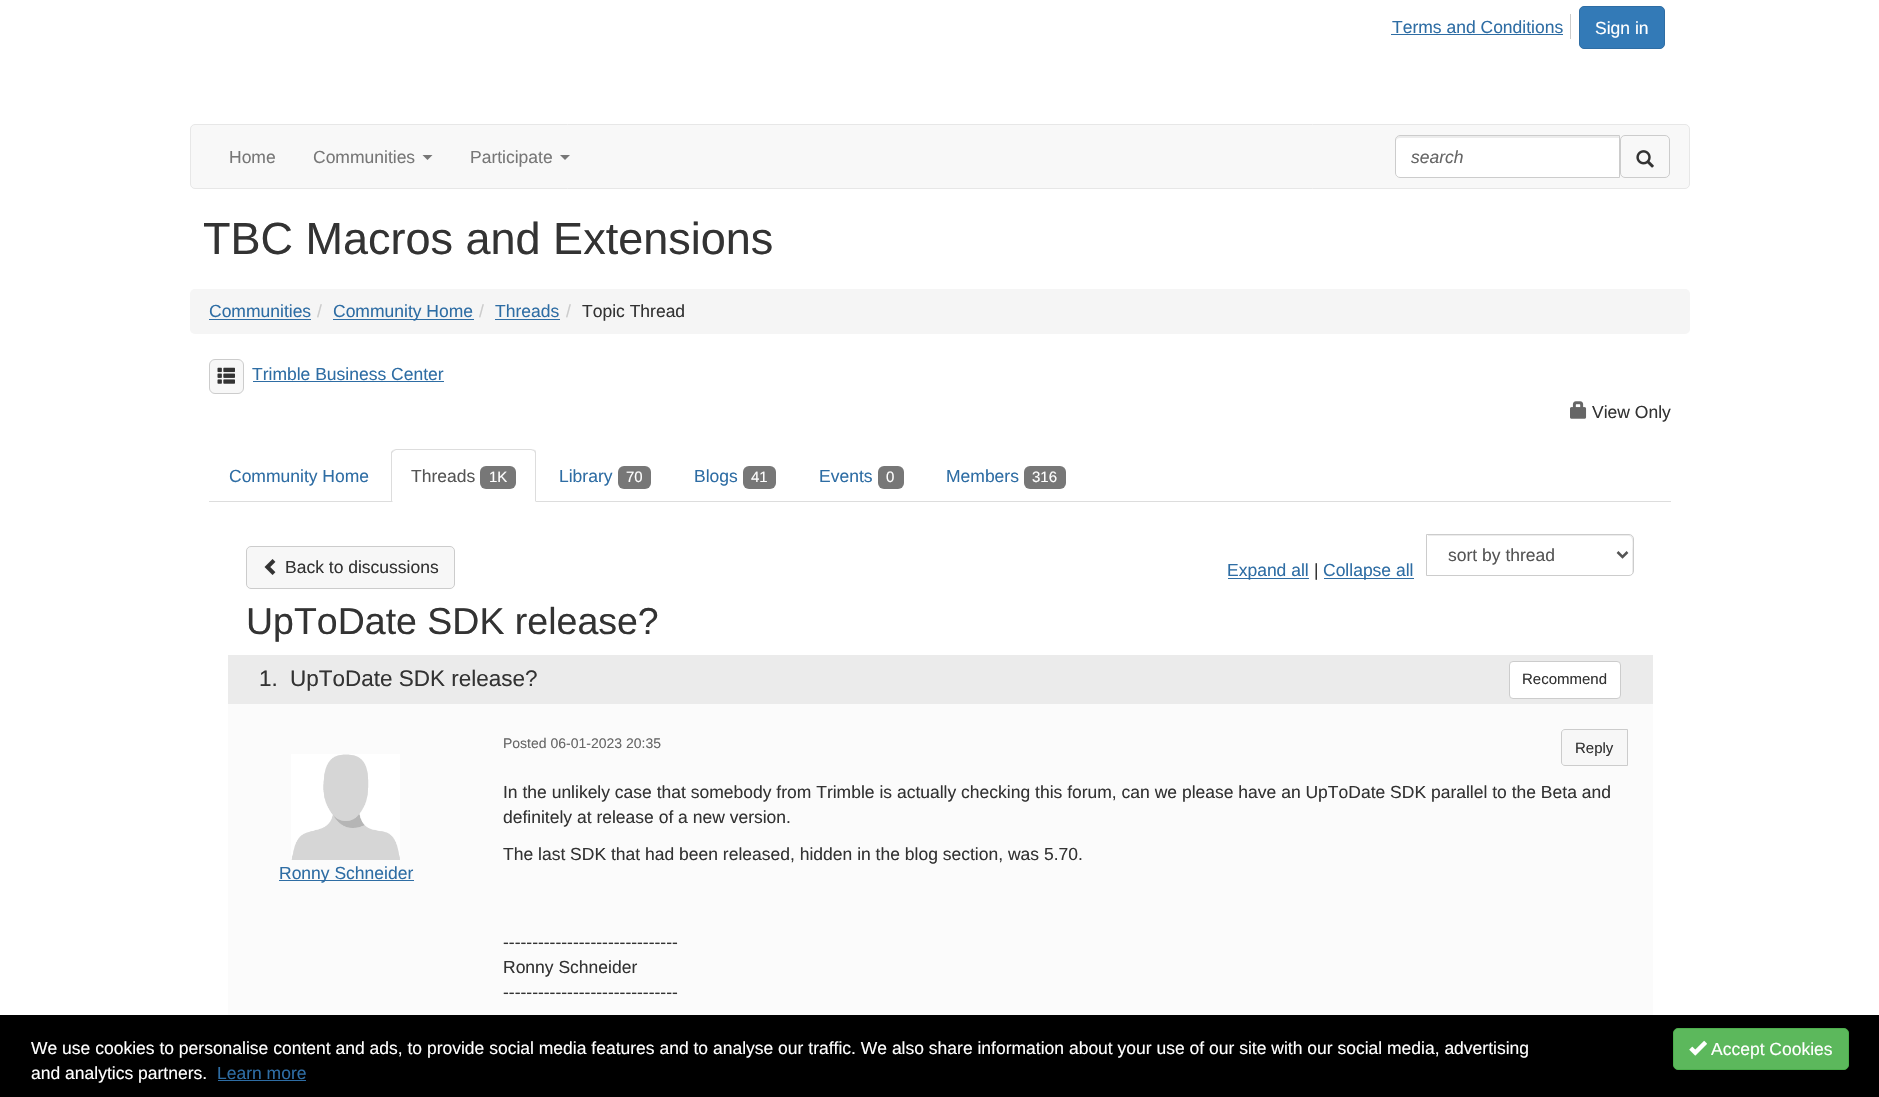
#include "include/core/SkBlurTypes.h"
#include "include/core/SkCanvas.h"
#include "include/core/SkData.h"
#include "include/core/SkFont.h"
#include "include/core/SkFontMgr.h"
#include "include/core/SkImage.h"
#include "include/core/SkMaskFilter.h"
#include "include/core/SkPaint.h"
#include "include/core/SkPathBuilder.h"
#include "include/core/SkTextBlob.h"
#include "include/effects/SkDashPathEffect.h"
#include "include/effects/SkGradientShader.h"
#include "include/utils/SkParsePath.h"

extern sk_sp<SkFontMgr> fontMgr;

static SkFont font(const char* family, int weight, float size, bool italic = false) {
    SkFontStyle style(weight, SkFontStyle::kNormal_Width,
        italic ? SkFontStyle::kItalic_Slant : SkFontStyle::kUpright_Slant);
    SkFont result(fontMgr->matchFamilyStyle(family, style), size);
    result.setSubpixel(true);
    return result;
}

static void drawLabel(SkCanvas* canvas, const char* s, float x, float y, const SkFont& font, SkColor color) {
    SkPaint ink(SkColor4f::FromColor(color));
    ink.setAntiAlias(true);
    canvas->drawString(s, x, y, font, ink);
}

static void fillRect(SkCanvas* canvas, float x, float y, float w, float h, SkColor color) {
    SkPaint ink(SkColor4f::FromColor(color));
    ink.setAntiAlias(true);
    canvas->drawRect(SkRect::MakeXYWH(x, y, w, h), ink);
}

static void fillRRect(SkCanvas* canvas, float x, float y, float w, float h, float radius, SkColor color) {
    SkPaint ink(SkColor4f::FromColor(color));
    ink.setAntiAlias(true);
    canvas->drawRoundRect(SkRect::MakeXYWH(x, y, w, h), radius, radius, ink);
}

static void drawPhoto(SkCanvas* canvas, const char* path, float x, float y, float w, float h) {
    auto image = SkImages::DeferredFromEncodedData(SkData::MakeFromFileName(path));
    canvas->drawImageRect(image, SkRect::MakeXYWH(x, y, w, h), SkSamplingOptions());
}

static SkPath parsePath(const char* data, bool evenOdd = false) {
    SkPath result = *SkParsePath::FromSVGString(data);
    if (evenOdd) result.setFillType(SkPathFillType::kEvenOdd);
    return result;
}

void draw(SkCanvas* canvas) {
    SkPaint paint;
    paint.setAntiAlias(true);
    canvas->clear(0xFFFFFFFF);
    fillRect(canvas, 1570, 14, 1, 25, 0xFFCCCCCC);
    SkFont font1 = font("Liberation Sans", 400, 17.5f);
    drawLabel(canvas, "Terms and Conditions", 1392, 33, font1, 0xFF2E6DA4);
    fillRect(canvas, 1391, 34, 172, 1, 0xFF2E6DA4);
    paint.setColor(0xFF337AB7);
    canvas->drawRoundRect(SkRect::MakeXYWH(1579.5f, 6.5f, 85, 42), 4.5f, 4.5f, paint);
    paint.setStroke(true);
    paint.setStrokeWidth(1);
    paint.setColor(0xFF2E6DA4);
    canvas->drawRoundRect(SkRect::MakeXYWH(1579.5f, 6.5f, 85, 42), 4.5f, 4.5f, paint);
    drawLabel(canvas, "Sign in", 1595, 34, font1, 0xFFFFFFFF);
    paint.setStroke(false);
    paint.setColor(0xFFF8F8F8);
    canvas->drawRoundRect(SkRect::MakeXYWH(190.5f, 124.5f, 1499, 64), 4.5f, 4.5f, paint);
    paint.setStroke(true);
    paint.setColor(0xFFE7E7E7);
    canvas->drawRoundRect(SkRect::MakeXYWH(190.5f, 124.5f, 1499, 64), 4.5f, 4.5f, paint);
    drawLabel(canvas, "Home", 229, 163, font1, 0xFF777777);
    drawLabel(canvas, "Communities", 313, 163, font1, 0xFF777777);
    paint.setStroke(false);
    paint.setColor(0xFF777777);
    canvas->drawPath(parsePath("M422.5 155H432.5L427.5 160Z"), paint);
    drawLabel(canvas, "Participate", 470, 163, font1, 0xFF777777);
    canvas->drawPath(parsePath("M560 155H570L565 160Z"), paint);
    paint.setColor(0xFFFFFFFF);
    canvas->drawPath(parsePath("M1400 135H1620V178H1400C1397 178 1395 176 1395 173V140C1395 137 1397 135 1400 135Z"), paint);
    paint.setColor(0xFFECECEC);
    canvas->drawPath(parsePath("M1400 138H1619V136H1400C1397 136 1396 138 1396 141C1396 139 1398 138 1400 138Z"), paint);
    paint.setStroke(true);
    paint.setColor(0xFFCCCCCC);
    canvas->drawPath(parsePath("M1400 135.5H1619.5V177.5H1400C1397.5 177.5 1395.5 175.5 1395.5 173V140C1395.5 137.5 1397.5 135.5 1400 135.5Z"), paint);
    SkFont font2 = font("Liberation Sans", 400, 17.5f, true);
    drawLabel(canvas, "search", 1411, 163, font2, 0xFF666666);
    canvas->drawRoundRect(SkRect::MakeXYWH(1620.5f, 135.5f, 49, 42), 4.5f, 4.5f, paint);
    drawPhoto(canvas, "assets/img1.png", 1636, 150, 18, 18);
    SkFont font3 = font("Liberation Sans", 400, 45);
    drawLabel(canvas, "TBC Macros and Extensions", 203, 254, font3, 0xFF333333);
    fillRRect(canvas, 190, 289, 1500, 45, 5, 0xFFF5F5F5);
    drawLabel(canvas, "Communities", 209, 317, font1, 0xFF2E6DA4);
    fillRect(canvas, 209, 319, 102, 1, 0xFF2E6DA4);
    drawLabel(canvas, "/", 317, 317, font1, 0xFFCCCCCC);
    fillRect(canvas, 333, 319, 141, 1, 0xFF2E6DA4);
    drawLabel(canvas, "Community Home", 333, 317, font1, 0xFF2E6DA4);
    drawLabel(canvas, "/", 479, 317, font1, 0xFFCCCCCC);
    drawLabel(canvas, "Threads", 495, 317, font1, 0xFF2E6DA4);
    fillRect(canvas, 495, 319, 65, 1, 0xFF2E6DA4);
    drawLabel(canvas, "/", 566, 317, font1, 0xFFCCCCCC);
    drawLabel(canvas, "Topic Thread", 582, 317, font1, 0xFF333333);
    paint.setStroke(false);
    paint.setColor(0xFFF7F7F7);
    canvas->drawRoundRect(SkRect::MakeXYWH(209.5f, 359.5f, 34, 34), 5.5f, 5.5f, paint);
    paint.setStroke(true);
    paint.setColor(0xFFCCCCCC);
    canvas->drawRoundRect(SkRect::MakeXYWH(209.5f, 359.5f, 34, 34), 5.5f, 5.5f, paint);
    drawPhoto(canvas, "assets/img2.png", 217, 367, 18, 17);
    drawLabel(canvas, "Trimble Business Center", 252, 380, font1, 0xFF2E6DA4);
    fillRect(canvas, 253, 381, 191, 1, 0xFF2E6DA4);
    drawPhoto(canvas, "assets/img3.png", 1570, 401, 17, 18);
    drawLabel(canvas, "View Only", 1592, 418, font1, 0xFF333333);
    fillRect(canvas, 209, 501, 1462, 1, 0xFFDDDDDD);
    drawLabel(canvas, "Community Home", 229, 482, font1, 0xFF2E6DA4);
    paint.setStroke(false);
    paint.setColor(0xFFFFFFFF);
    canvas->drawPath(parsePath("M396 449H531C534 449 536 451 536 454V503H391V454C391 451 393 449 396 449Z"), paint);
    paint.setColor(0xFFDDDDDD);
    canvas->drawPath(parsePath("M396 449L393 450L394 451L396 450H531L534 451L535 450C534 450 532 449 531 449Z"), paint);
    canvas->drawPath(parsePath("M535 501L536 502V454C536 452 536 451 535 450L534 451L535 453Z"), paint);
    canvas->drawPath(parsePath("M391 452L393 450L394 451L392 453V501H393L392 502H391Z"), paint);
    drawLabel(canvas, "Threads", 411, 482, font1, 0xFF555555);
    fillRRect(canvas, 480, 466, 36, 23, 6, 0xFF777777);
    SkFont font4 = font("Liberation Sans", 400, 15);
    drawLabel(canvas, "1K", 489, 482, font4, 0xFFFFFFFF);
    drawLabel(canvas, "Library", 559, 482, font1, 0xFF2E6DA4);
    fillRRect(canvas, 618, 466, 33, 23, 6, 0xFF777777);
    drawLabel(canvas, "70", 626, 482, font4, 0xFFFFFFFF);
    drawLabel(canvas, "Blogs", 694, 482, font1, 0xFF2E6DA4);
    fillRRect(canvas, 743, 466, 33, 23, 6, 0xFF777777);
    drawLabel(canvas, "41", 751, 482, font4, 0xFFFFFFFF);
    drawLabel(canvas, "Events", 819, 482, font1, 0xFF2E6DA4);
    fillRRect(canvas, 878, 466, 26, 23, 6, 0xFF777777);
    drawLabel(canvas, "0", 886, 482, font4, 0xFFFFFFFF);
    drawLabel(canvas, "Members", 946, 482, font1, 0xFF2E6DA4);
    fillRRect(canvas, 1024, 466, 42, 23, 6, 0xFF777777);
    drawLabel(canvas, "316", 1032, 482, font4, 0xFFFFFFFF);
    paint.setColor(0xFFF7F7F7);
    canvas->drawRoundRect(SkRect::MakeXYWH(246.5f, 546.5f, 208, 42), 4.5f, 4.5f, paint);
    paint.setStroke(true);
    paint.setColor(0xFFCCCCCC);
    canvas->drawRoundRect(SkRect::MakeXYWH(246.5f, 546.5f, 208, 42), 4.5f, 4.5f, paint);
    drawPhoto(canvas, "assets/img4.png", 264, 559, 12, 16);
    drawLabel(canvas, "Back to discussions", 285, 573, font1, 0xFF333333);
    paint.setStroke(false);
    paint.setColor(0xFFECECEC);
    canvas->drawPath(parsePath("M1428 536H1629C1634 536 1632 549 1632 551V574C1633 573 1633 572 1633 571V539C1633 537 1631 535 1629 535H1428Z"), paint);
    paint.setStroke(true);
    paint.setColor(0xFFCCCCCC);
    canvas->drawPath(parsePath("M1426.5 534.5H1629C1631.5 534.5 1633.5 536.5 1633.5 539V571C1633.5 573.5 1631.5 575.5 1629 575.5H1426.5Z"), paint);
    paint.setStrokeWidth(2.5f);
    paint.setColor(0xFF555555);
    canvas->drawPath(parsePath("M1617.5 552L1622.5 557L1627.5 552"), paint);
    drawLabel(canvas, "sort by thread", 1448, 561, font1, 0xFF555555);
    fillRect(canvas, 1228, 578, 81, 1, 0xFF2E6DA4);
    drawLabel(canvas, "Expand all", 1227, 576, font1, 0xFF2E6DA4);
    drawLabel(canvas, "|", 1314, 576, font1, 0xFF333333);
    fillRect(canvas, 1324, 578, 90, 1, 0xFF2E6DA4);
    drawLabel(canvas, "Collapse all", 1323, 576, font1, 0xFF2E6DA4);
    SkFont font5 = font("Liberation Sans", 400, 37.5f);
    drawLabel(canvas, "UpToDate SDK release?", 246, 634, font5, 0xFF333333);
    fillRect(canvas, 228, 704, 1425, 311, 0xFFFBFBFB);
    fillRect(canvas, 228, 655, 1425, 49, 0xFFEBEBEB);
    SkFont font6 = font("Liberation Sans", 400, 22.5f);
    drawLabel(canvas, "1.", 259, 686, font6, 0xFF333333);
    drawLabel(canvas, "UpToDate SDK release?", 290, 686, font6, 0xFF333333);
    paint.setStroke(false);
    paint.setColor(0xFFFFFFFF);
    canvas->drawRoundRect(SkRect::MakeXYWH(1509.5f, 661.5f, 111, 37), 3.5f, 3.5f, paint);
    paint.setStroke(true);
    paint.setStrokeWidth(1);
    paint.setColor(0xFFCCCCCC);
    canvas->drawRoundRect(SkRect::MakeXYWH(1509.5f, 661.5f, 111, 37), 3.5f, 3.5f, paint);
    drawLabel(canvas, "Recommend", 1522, 684, font4, 0xFF333333);
    drawPhoto(canvas, "assets/img5.png", 291, 754, 109, 106);
    fillRect(canvas, 279, 880, 135, 1, 0xFF2E6DA4);
    drawLabel(canvas, "Ronny Schneider", 279, 879, font1, 0xFF2E6DA4);
    SkFont font7 = font("Liberation Sans", 400, 14);
    drawLabel(canvas, "Posted 06-01-2023 20:35", 503, 748, font7, 0xFF666666);
    paint.setStroke(false);
    paint.setColor(0xFFF7F7F7);
    canvas->drawPath(parsePath("M1565 729.5H1627.5V765.5H1565C1563 765.5 1561.5 764 1561.5 762V733C1561.5 731 1563 729.5 1565 729.5Z"), paint);
    paint.setStroke(true);
    paint.setColor(0xFFCCCCCC);
    canvas->drawPath(parsePath("M1565 729.5H1627.5V765.5H1565C1563 765.5 1561.5 764 1561.5 762V733C1561.5 731 1563 729.5 1565 729.5Z"), paint);
    drawLabel(canvas, "Reply", 1575, 753, font4, 0xFF333333);
    drawLabel(canvas, "In the unlikely case that somebody from Trimble is actually checking this forum, can we please have an UpToDate SDK parallel to the Beta and", 503, 798, font1, 0xFF333333);
    drawLabel(canvas, "definitely at release of a new version.", 503, 823, font1, 0xFF333333);
    drawLabel(canvas, "The last SDK that had been released, hidden in the blog section, was 5.70.", 503, 860, font1, 0xFF333333);
    drawLabel(canvas, "------------------------------", 503, 948, font1, 0xFF333333);
    drawLabel(canvas, "Ronny Schneider", 503, 973, font1, 0xFF333333);
    drawLabel(canvas, "------------------------------", 503, 998, font1, 0xFF333333);
    fillRect(canvas, 0, 1015, 1879, 82, 0xFF000000);
    drawLabel(canvas, "We use cookies to personalise content and ads, to provide social media features and to analyse our traffic. We also share information about your use of our site with our social media, advertising", 31, 1054, font1, 0xFFFFFFFF);
    drawLabel(canvas, "and analytics partners.", 31, 1079, font1, 0xFFFFFFFF);
    drawLabel(canvas, "Learn more", 217, 1079, font1, 0xFF2E6DA4);
    fillRect(canvas, 218, 1080, 88, 1, 0xFF2E6DA4);
    paint.setStroke(false);
    paint.setColor(0xFF5CB85C);
    canvas->drawRoundRect(SkRect::MakeXYWH(1673.5f, 1028.5f, 175, 41), 4.5f, 4.5f, paint);
    paint.setStroke(true);
    paint.setColor(0xFF4CAE4C);
    canvas->drawRoundRect(SkRect::MakeXYWH(1673.5f, 1028.5f, 175, 41), 4.5f, 4.5f, paint);
    drawPhoto(canvas, "assets/img6.png", 1689, 1040, 18, 16);
    drawLabel(canvas, "Accept Cookies", 1711, 1055, font1, 0xFFFFFFFF);
}
